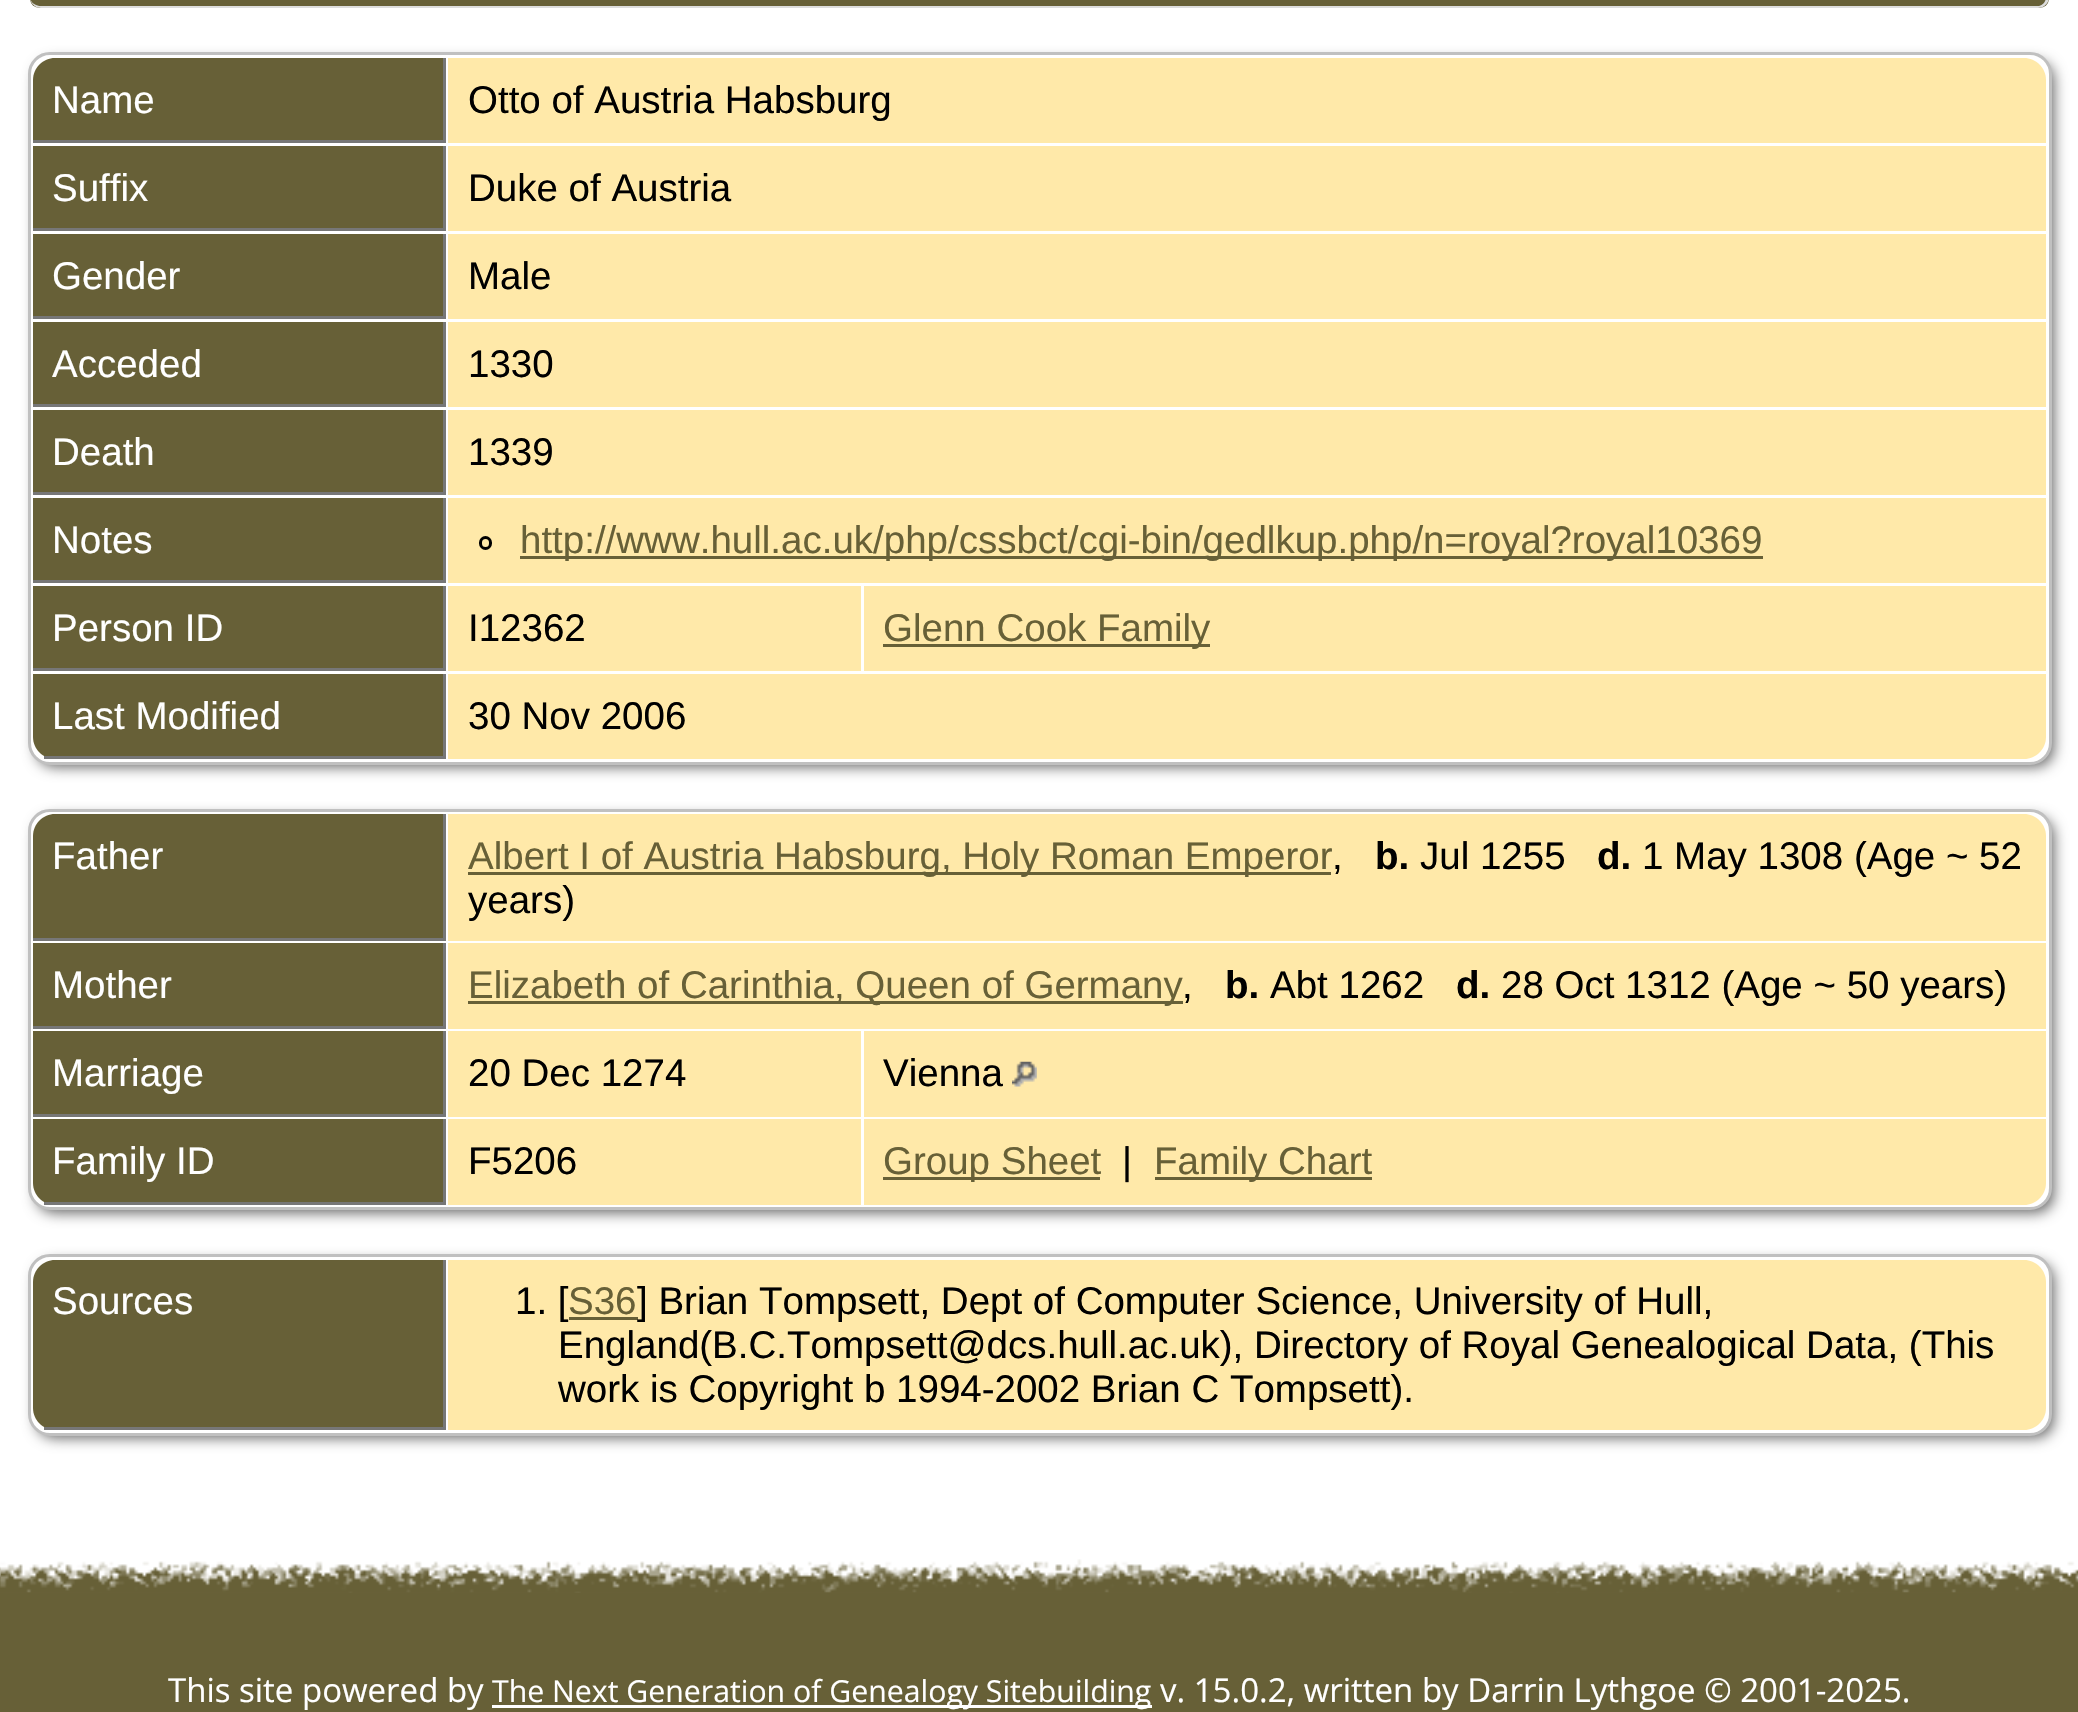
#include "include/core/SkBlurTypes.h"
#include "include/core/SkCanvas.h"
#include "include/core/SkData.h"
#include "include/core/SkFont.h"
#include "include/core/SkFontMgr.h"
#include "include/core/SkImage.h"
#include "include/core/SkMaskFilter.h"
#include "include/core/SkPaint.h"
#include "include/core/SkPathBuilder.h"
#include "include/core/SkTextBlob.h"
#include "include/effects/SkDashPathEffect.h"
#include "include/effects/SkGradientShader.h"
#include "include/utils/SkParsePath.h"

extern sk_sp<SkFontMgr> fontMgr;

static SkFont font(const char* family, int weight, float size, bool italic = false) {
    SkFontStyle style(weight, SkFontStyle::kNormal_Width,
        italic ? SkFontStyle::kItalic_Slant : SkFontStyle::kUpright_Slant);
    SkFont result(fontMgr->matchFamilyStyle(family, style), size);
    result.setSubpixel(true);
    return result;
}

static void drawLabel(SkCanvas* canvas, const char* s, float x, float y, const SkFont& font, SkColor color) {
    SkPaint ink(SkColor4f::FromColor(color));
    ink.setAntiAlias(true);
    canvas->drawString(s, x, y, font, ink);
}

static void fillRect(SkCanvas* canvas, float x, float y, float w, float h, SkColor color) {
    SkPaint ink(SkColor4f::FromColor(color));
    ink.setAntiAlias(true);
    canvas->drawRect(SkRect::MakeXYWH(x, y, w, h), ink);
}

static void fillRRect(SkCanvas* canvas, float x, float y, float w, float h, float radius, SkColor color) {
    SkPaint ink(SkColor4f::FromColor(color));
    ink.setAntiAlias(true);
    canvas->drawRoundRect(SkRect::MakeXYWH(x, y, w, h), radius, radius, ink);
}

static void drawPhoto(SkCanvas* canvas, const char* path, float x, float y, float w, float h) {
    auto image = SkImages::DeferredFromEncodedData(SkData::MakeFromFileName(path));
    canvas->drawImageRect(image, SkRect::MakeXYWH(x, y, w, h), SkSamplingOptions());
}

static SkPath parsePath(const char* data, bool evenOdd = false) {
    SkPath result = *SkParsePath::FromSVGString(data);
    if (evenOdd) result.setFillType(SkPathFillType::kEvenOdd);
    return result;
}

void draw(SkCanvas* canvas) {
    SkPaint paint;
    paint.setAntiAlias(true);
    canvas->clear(0xFF676037);
    fillRect(canvas, 0, 0, 2078, 1559, 0xFFFFFFFF);
    fillRRect(canvas, 30, -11, 2019, 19, 11, 0xFF676037);
    paint.setColor(0xFFDDDDDD);
    canvas->drawPath(parsePath("M41-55H2038C2044-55 2049-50 2049-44V-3C2049 3 2044 8 2038 8H41C35 8 30 3 30-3V-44C30-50 35-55 41-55ZM41-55H2038C2042-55 2046-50 2046-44V-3C2046 2 2042 6 2038 6H41C35 6 30 2 30-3V-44C30-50 35-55 41-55Z", true), paint);
    paint.setColor(0xFF666666);
    paint.setMaskFilter(SkMaskFilter::MakeBlur(kNormal_SkBlurStyle, 7));
    canvas->drawRoundRect(SkRect::MakeXYWH(36, 61, 2018, 706), 19, 19, paint);
    paint.setMaskFilter(nullptr);
    paint.setColor(0xFFFFFFFF);
    canvas->drawRoundRect(SkRect::MakeXYWH(29.5f, 53.5f, 2021, 710), 20.5f, 20.5f, paint);
    paint.setStroke(true);
    paint.setStrokeWidth(3);
    paint.setColor(0xFFC0C0C0);
    canvas->drawRoundRect(SkRect::MakeXYWH(29.5f, 53.5f, 2021, 710), 20.5f, 20.5f, paint);
    paint.setStroke(false);
    paint.setColor(0xFF676037);
    canvas->drawPath(parsePath("M55 58H446V143H33V80C33 68 43 58 55 58Z"), paint);
    fillRect(canvas, 443, 58, 3, 85, 0xFF777777);
    fillRect(canvas, 33, 140, 413, 3, 0xFF777777);
    SkFont font1 = font("Liberation Sans", 400, 38.5f);
    drawLabel(canvas, "Name", 52, 113, font1, 0xFFFFFFFF);
    paint.setColor(0xFFFFE9A9);
    canvas->drawPath(parsePath("M448 58H2024C2036 58 2046 68 2046 80V143H448Z"), paint);
    drawLabel(canvas, "Otto of Austria Habsburg", 468, 113, font1, 0xFF000000);
    fillRect(canvas, 33, 146, 410, 82, 0xFF676037);
    fillRect(canvas, 443, 146, 3, 85, 0xFF777777);
    fillRect(canvas, 33, 228, 413, 3, 0xFF777777);
    drawLabel(canvas, "Suffix", 52, 201, font1, 0xFFFFFFFF);
    fillRect(canvas, 448, 146, 1598, 85, 0xFFFFE9A9);
    drawLabel(canvas, "Duke of Austria", 468, 201, font1, 0xFF000000);
    fillRect(canvas, 33, 234, 410, 82, 0xFF676037);
    fillRect(canvas, 443, 234, 3, 85, 0xFF777777);
    fillRect(canvas, 33, 316, 413, 3, 0xFF777777);
    drawLabel(canvas, "Gender", 52, 289, font1, 0xFFFFFFFF);
    fillRect(canvas, 448, 234, 1598, 85, 0xFFFFE9A9);
    drawLabel(canvas, "Male", 468, 289, font1, 0xFF000000);
    fillRect(canvas, 33, 322, 410, 82, 0xFF676037);
    fillRect(canvas, 443, 322, 3, 85, 0xFF777777);
    fillRect(canvas, 33, 404, 413, 3, 0xFF777777);
    drawLabel(canvas, "Acceded", 52, 377, font1, 0xFFFFFFFF);
    fillRect(canvas, 448, 322, 1598, 85, 0xFFFFE9A9);
    drawLabel(canvas, "1330", 468, 377, font1, 0xFF000000);
    fillRect(canvas, 33, 410, 410, 82, 0xFF676037);
    fillRect(canvas, 443, 410, 3, 85, 0xFF777777);
    fillRect(canvas, 33, 492, 413, 3, 0xFF777777);
    drawLabel(canvas, "Death", 52, 465, font1, 0xFFFFFFFF);
    fillRect(canvas, 448, 410, 1598, 85, 0xFFFFE9A9);
    drawLabel(canvas, "1339", 468, 465, font1, 0xFF000000);
    fillRect(canvas, 33, 498, 410, 82, 0xFF676037);
    fillRect(canvas, 443, 498, 3, 85, 0xFF777777);
    fillRect(canvas, 33, 580, 413, 3, 0xFF777777);
    drawLabel(canvas, "Notes", 52, 553, font1, 0xFFFFFFFF);
    fillRect(canvas, 448, 498, 1598, 85, 0xFFFFE9A9);
    paint.setStroke(true);
    paint.setColor(0xFF000000);
    canvas->drawRoundRect(SkRect::MakeXYWH(480.5f, 537.5f, 10, 11), 5, 5, paint);
    fillRect(canvas, 520, 556, 1243, 3, 0xFF676037);
    drawLabel(canvas, "http://www.hull.ac.uk/php/cssbct/cgi-bin/gedlkup.php/n=royal?royal10369", 520, 553, font1, 0xFF676037);
    fillRect(canvas, 33, 586, 410, 82, 0xFF676037);
    fillRect(canvas, 443, 586, 3, 85, 0xFF777777);
    fillRect(canvas, 33, 668, 413, 3, 0xFF777777);
    drawLabel(canvas, "Person ID", 52, 641, font1, 0xFFFFFFFF);
    fillRect(canvas, 448, 586, 413, 85, 0xFFFFE9A9);
    drawLabel(canvas, "I12362", 468, 641, font1, 0xFF000000);
    fillRect(canvas, 864, 586, 1182, 85, 0xFFFFE9A9);
    fillRect(canvas, 883, 644, 327, 3, 0xFF676037);
    drawLabel(canvas, "Glenn Cook Family", 883, 641, font1, 0xFF676037);
    paint.setStroke(false);
    paint.setColor(0xFF676037);
    canvas->drawPath(parsePath("M33 674H446V759H55C43 759 33 749 33 737Z"), paint);
    fillRect(canvas, 443, 674, 3, 85, 0xFF777777);
    fillRect(canvas, 44, 756, 402, 3, 0xFF777777);
    drawLabel(canvas, "Last Modified", 52, 729, font1, 0xFFFFFFFF);
    paint.setColor(0xFFFFE9A9);
    canvas->drawPath(parsePath("M448 674H2046V737C2046 749 2036 759 2024 759H448Z"), paint);
    drawLabel(canvas, "30 Nov 2006", 468, 729, font1, 0xFF000000);
    paint.setColor(0xFF666666);
    paint.setMaskFilter(SkMaskFilter::MakeBlur(kNormal_SkBlurStyle, 7));
    canvas->drawRoundRect(SkRect::MakeXYWH(36, 817, 2018, 396), 19, 19, paint);
    paint.setMaskFilter(nullptr);
    paint.setColor(0xFFFFFFFF);
    canvas->drawRoundRect(SkRect::MakeXYWH(29.5f, 810.5f, 2021, 398), 20.5f, 20.5f, paint);
    paint.setStroke(true);
    paint.setColor(0xFFC0C0C0);
    canvas->drawRoundRect(SkRect::MakeXYWH(29.5f, 810.5f, 2021, 398), 20.5f, 20.5f, paint);
    paint.setStroke(false);
    paint.setColor(0xFF676037);
    canvas->drawPath(parsePath("M55 814H446V941H33V836C33 824 43 814 55 814Z"), paint);
    fillRect(canvas, 443, 814, 3, 127, 0xFF777777);
    fillRect(canvas, 33, 938, 413, 3, 0xFF777777);
    drawLabel(canvas, "Father", 52, 869, font1, 0xFFFFFFFF);
    paint.setColor(0xFFFFE9A9);
    canvas->drawPath(parsePath("M448 814H2024C2036 814 2046 824 2046 836V941H448Z"), paint);
    fillRect(canvas, 468, 872, 863, 3, 0xFF676037);
    drawLabel(canvas, "Albert I of Austria Habsburg, Holy Roman Emperor", 468, 869, font1, 0xFF676037);
    drawLabel(canvas, ",", 1332, 869, font1, 0xFF000000);
    SkFont font2 = font("Liberation Sans", 700, 38.5f);
    drawLabel(canvas, "b.", 1375, 869, font2, 0xFF000000);
    drawLabel(canvas, "Jul 1255", 1420, 869, font1, 0xFF000000);
    drawLabel(canvas, "d.", 1597, 869, font2, 0xFF000000);
    drawLabel(canvas, "1 May 1308 (Age ~ 52", 1642, 869, font1, 0xFF000000);
    drawLabel(canvas, "years)", 468, 913, font1, 0xFF000000);
    fillRect(canvas, 33, 943, 410, 83, 0xFF676037);
    fillRect(canvas, 443, 943, 3, 86, 0xFF777777);
    fillRect(canvas, 33, 1026, 413, 3, 0xFF777777);
    drawLabel(canvas, "Mother", 52, 998, font1, 0xFFFFFFFF);
    fillRect(canvas, 448, 943, 1598, 86, 0xFFFFE9A9);
    fillRect(canvas, 468, 1001, 715, 3, 0xFF676037);
    drawLabel(canvas, "Elizabeth of Carinthia, Queen of Germany", 468, 998, font1, 0xFF676037);
    drawLabel(canvas, ",", 1182, 998, font1, 0xFF000000);
    drawLabel(canvas, "b.", 1225, 998, font2, 0xFF000000);
    drawLabel(canvas, "Abt 1262", 1270, 998, font1, 0xFF000000);
    drawLabel(canvas, "d.", 1456, 998, font2, 0xFF000000);
    drawLabel(canvas, "28 Oct 1312 (Age ~ 50 years)", 1501, 998, font1, 0xFF000000);
    fillRect(canvas, 33, 1031, 410, 83, 0xFF676037);
    fillRect(canvas, 443, 1031, 3, 86, 0xFF777777);
    fillRect(canvas, 33, 1114, 413, 3, 0xFF777777);
    drawLabel(canvas, "Marriage", 52, 1086, font1, 0xFFFFFFFF);
    fillRect(canvas, 448, 1031, 413, 86, 0xFFFFE9A9);
    drawLabel(canvas, "20 Dec 1274", 468, 1086, font1, 0xFF000000);
    fillRect(canvas, 864, 1031, 1182, 86, 0xFFFFE9A9);
    drawLabel(canvas, "Vienna", 883, 1086, font1, 0xFF000000);
    drawPhoto(canvas, "assets/img1.png", 1012, 1061, 25, 26);
    paint.setColor(0xFF676037);
    canvas->drawPath(parsePath("M33 1119H446V1205H55C43 1205 33 1195 33 1183Z"), paint);
    fillRect(canvas, 443, 1119, 3, 86, 0xFF777777);
    fillRect(canvas, 44, 1202, 402, 3, 0xFF777777);
    drawLabel(canvas, "Family ID", 52, 1174, font1, 0xFFFFFFFF);
    fillRect(canvas, 448, 1119, 413, 86, 0xFFFFE9A9);
    drawLabel(canvas, "F5206", 468, 1174, font1, 0xFF000000);
    paint.setColor(0xFFFFE9A9);
    canvas->drawPath(parsePath("M864 1119H2046V1183C2046 1195 2036 1205 2024 1205H864Z"), paint);
    fillRect(canvas, 883, 1177, 217, 3, 0xFF676037);
    drawLabel(canvas, "Group Sheet", 883, 1174, font1, 0xFF676037);
    drawLabel(canvas, "|", 1122, 1174, font1, 0xFF000000);
    fillRect(canvas, 1155, 1177, 217, 3, 0xFF676037);
    drawLabel(canvas, "Family Chart", 1154, 1174, font1, 0xFF676037);
    paint.setColor(0xFF666666);
    paint.setMaskFilter(SkMaskFilter::MakeBlur(kNormal_SkBlurStyle, 7));
    canvas->drawRoundRect(SkRect::MakeXYWH(36, 1262, 2018, 176), 19, 19, paint);
    paint.setMaskFilter(nullptr);
    paint.setColor(0xFFFFFFFF);
    canvas->drawRoundRect(SkRect::MakeXYWH(29.5f, 1255.5f, 2021, 179), 20.5f, 20.5f, paint);
    paint.setStroke(true);
    paint.setColor(0xFFC0C0C0);
    canvas->drawRoundRect(SkRect::MakeXYWH(29.5f, 1255.5f, 2021, 179), 20.5f, 20.5f, paint);
    paint.setStroke(false);
    paint.setColor(0xFF676037);
    canvas->drawPath(parsePath("M55 1260H446V1430H55C43 1430 33 1420 33 1408V1282C33 1270 43 1260 55 1260Z"), paint);
    fillRect(canvas, 443, 1260, 3, 170, 0xFF777777);
    fillRect(canvas, 44, 1427, 402, 3, 0xFF777777);
    drawLabel(canvas, "Sources", 52, 1314, font1, 0xFFFFFFFF);
    paint.setColor(0xFFFFE9A9);
    canvas->drawPath(parsePath("M448 1260H2024C2036 1260 2046 1270 2046 1282V1408C2046 1420 2036 1430 2024 1430H448Z"), paint);
    drawLabel(canvas, "1. [", 515, 1314, font1, 0xFF000000);
    drawLabel(canvas, "S36", 568, 1314, font1, 0xFF676037);
    fillRect(canvas, 569, 1317, 69, 3, 0xFF676037);
    drawLabel(canvas, "] Brian Tompsett, Dept of Computer Science, University of Hull,", 637, 1314, font1, 0xFF000000);
    drawLabel(canvas, "England(B.C.Tompsett@dcs.hull.ac.uk), Directory of Royal Genealogical Data, (This", 558, 1358, font1, 0xFF000000);
    drawLabel(canvas, "work is Copyright b 1994-2002 Brian C Tompsett).", 558, 1402, font1, 0xFF000000);
    drawPhoto(canvas, "assets/img2.png", 0, 1559, 2078, 34);
    SkFont font3 = font("Open Sans", 400, 33);
    drawLabel(canvas, "This site powered by", 168, 1702, font3, 0xFFFFFFFF);
    fillRect(canvas, 492, 1705, 660, 3, 0xFFFFFFFF);
    SkFont font4 = font("Open Sans", 400, 30.25f);
    drawLabel(canvas, "The Next Generation of Genealogy Sitebuilding", 492, 1702, font4, 0xFFFFFFFF);
    drawLabel(canvas, "v. 15.0.2, written by Darrin Lythgoe © 2001-2025.", 1160, 1702, font3, 0xFFFFFFFF);
}
